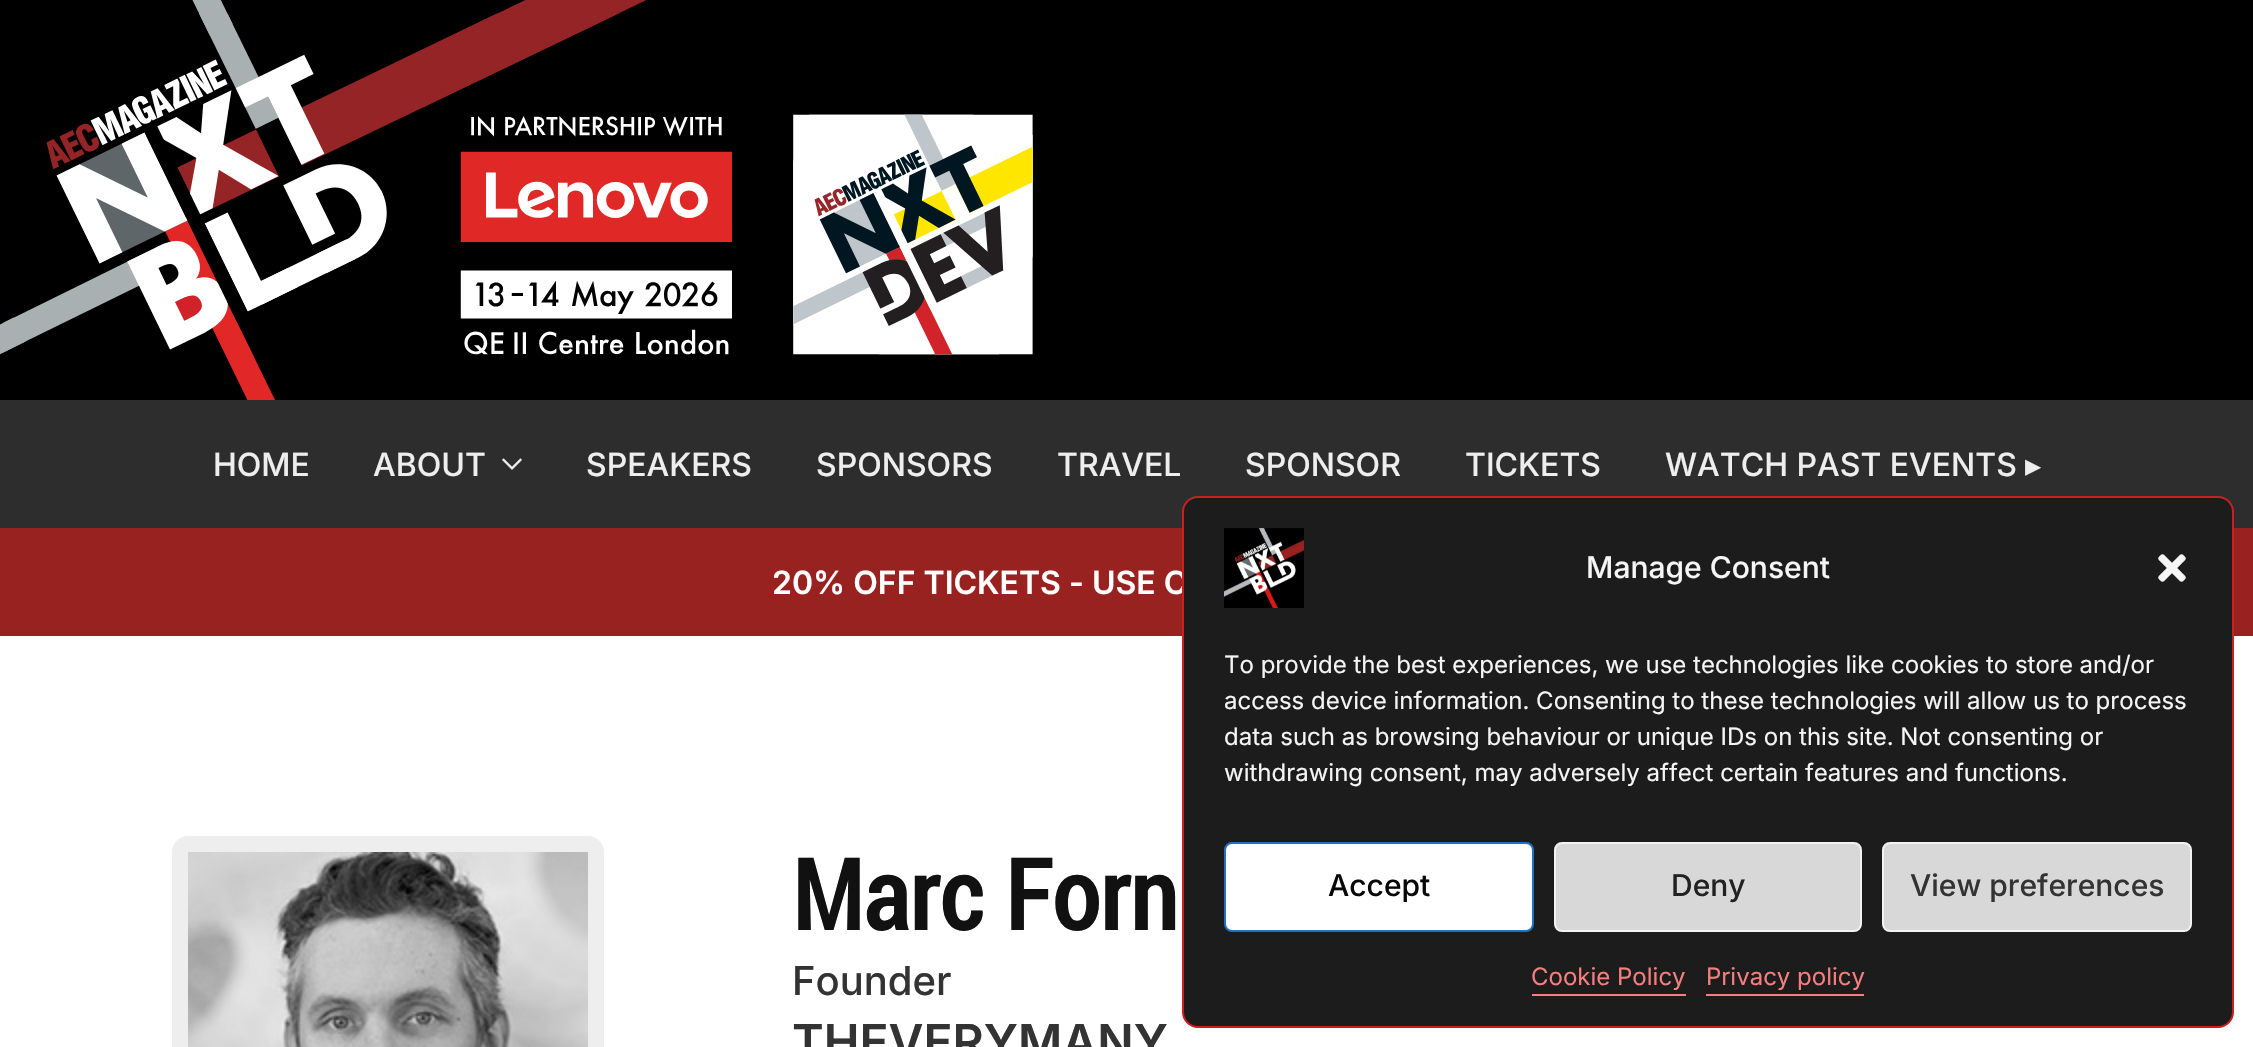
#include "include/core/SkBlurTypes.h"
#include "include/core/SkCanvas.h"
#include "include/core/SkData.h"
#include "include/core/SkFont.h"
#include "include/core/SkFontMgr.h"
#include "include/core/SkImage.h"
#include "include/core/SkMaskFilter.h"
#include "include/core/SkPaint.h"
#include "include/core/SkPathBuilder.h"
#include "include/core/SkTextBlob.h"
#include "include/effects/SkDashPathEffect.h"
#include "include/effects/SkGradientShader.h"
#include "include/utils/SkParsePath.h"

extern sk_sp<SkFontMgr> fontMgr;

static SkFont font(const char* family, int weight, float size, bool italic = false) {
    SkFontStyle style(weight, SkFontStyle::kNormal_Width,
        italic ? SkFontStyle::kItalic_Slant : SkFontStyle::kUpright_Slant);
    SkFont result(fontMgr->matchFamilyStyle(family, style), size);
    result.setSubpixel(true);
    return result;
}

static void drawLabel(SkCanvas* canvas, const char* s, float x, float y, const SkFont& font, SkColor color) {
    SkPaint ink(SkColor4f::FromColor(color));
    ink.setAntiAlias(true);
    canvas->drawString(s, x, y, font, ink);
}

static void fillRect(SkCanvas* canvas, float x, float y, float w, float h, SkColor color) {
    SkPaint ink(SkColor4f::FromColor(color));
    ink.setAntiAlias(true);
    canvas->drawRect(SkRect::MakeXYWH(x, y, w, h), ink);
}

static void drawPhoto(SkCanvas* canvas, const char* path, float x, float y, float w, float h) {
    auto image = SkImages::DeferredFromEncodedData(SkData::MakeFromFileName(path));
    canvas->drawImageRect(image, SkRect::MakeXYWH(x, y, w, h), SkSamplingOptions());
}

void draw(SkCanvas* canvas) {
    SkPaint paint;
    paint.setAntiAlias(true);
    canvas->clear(0xFF000000);
    drawPhoto(canvas, "assets/img1.png", 0, 0, 1033, 400);
    fillRect(canvas, 0, 400, 2253, 128, 0xFF2D2D2D);
    SkFont font1 = font("Inter", 500, 32);
    drawLabel(canvas, "HOME", 213, 476, font1, 0xFFEEEEEE);
    drawLabel(canvas, "ABOUT", 373, 476, font1, 0xFFEEEEEE);
    drawPhoto(canvas, "assets/img2.png", 502, 458, 20, 12);
    drawLabel(canvas, "SPEAKERS", 586, 476, font1, 0xFFEEEEEE);
    drawLabel(canvas, "SPONSORS", 816, 476, font1, 0xFFEEEEEE);
    drawLabel(canvas, "TRAVEL", 1057, 476, font1, 0xFFEEEEEE);
    drawLabel(canvas, "SPONSOR", 1245, 476, font1, 0xFFEEEEEE);
    drawLabel(canvas, "TICKETS", 1465, 476, font1, 0xFFEEEEEE);
    drawLabel(canvas, "WATCH PAST EVENTS", 1665, 476, font1, 0xFFEEEEEE);
    SkFont font2 = font("DejaVu Sans", 400, 32);
    drawLabel(canvas, "▸", 2025, 476, font2, 0xFFEEEEEE);
    fillRect(canvas, 0, 528, 2253, 108, 0xFF982220);
    SkFont font3 = font("Inter", 600, 32);
    drawLabel(canvas, "20% OFF TICKETS - USE C", 772, 594, font3, 0xFFFFFFFF);
    fillRect(canvas, 0, 636, 2253, 411, 0xFFFFFFFF);
    paint.setColor(0xFF1C1C1C);
    canvas->drawRoundRect(SkRect::MakeXYWH(1183, 497, 1050, 530), 15, 15, paint);
    paint.setStroke(true);
    paint.setStrokeWidth(2);
    paint.setColor(0xFFCE1F1F);
    canvas->drawRoundRect(SkRect::MakeXYWH(1183, 497, 1050, 530), 15, 15, paint);
    drawPhoto(canvas, "assets/img3.png", 1224, 528, 80, 80);
    SkFont font4 = font("Inter", 500, 30);
    drawLabel(canvas, "Manage Consent", 1586, 578, font4, 0xFFF5F5F5);
    drawPhoto(canvas, "assets/img4.png", 2158, 554, 28, 28);
    SkFont font5 = font("Inter", 400, 24);
    drawLabel(canvas, "To provide the best experiences, we use technologies like cookies to store and/or", 1224, 673, font5, 0xFFF5F5F5);
    drawLabel(canvas, "access device information. Consenting to these technologies will allow us to process", 1224, 709, font5, 0xFFF5F5F5);
    drawLabel(canvas, "data such as browsing behaviour or unique IDs on this site. Not consenting or", 1224, 745, font5, 0xFFF5F5F5);
    drawLabel(canvas, "withdrawing consent, may adversely affect certain features and functions.", 1224, 781, font5, 0xFFF5F5F5);
    paint.setStroke(false);
    paint.setColor(0xFFFFFFFF);
    canvas->drawRoundRect(SkRect::MakeXYWH(1225, 843, 308, 88), 7, 7, paint);
    paint.setStroke(true);
    paint.setColor(0xFF1E73BE);
    canvas->drawRoundRect(SkRect::MakeXYWH(1225, 843, 308, 88), 7, 7, paint);
    drawLabel(canvas, "Accept", 1328, 896, font4, 0xFF080808);
    paint.setStroke(false);
    paint.setColor(0xFFD8D8D8);
    canvas->drawRoundRect(SkRect::MakeXYWH(1555, 843, 306, 88), 7, 7, paint);
    paint.setStroke(true);
    paint.setColor(0xFFF2F2F2);
    canvas->drawRoundRect(SkRect::MakeXYWH(1555, 843, 306, 88), 7, 7, paint);
    drawLabel(canvas, "Deny", 1671, 896, font4, 0xFF222222);
    paint.setStroke(false);
    paint.setColor(0xFFD8D8D8);
    canvas->drawRoundRect(SkRect::MakeXYWH(1883, 843, 308, 88), 7, 7, paint);
    paint.setStroke(true);
    paint.setColor(0xFFF2F2F2);
    canvas->drawRoundRect(SkRect::MakeXYWH(1883, 843, 308, 88), 7, 7, paint);
    drawLabel(canvas, "View preferences", 1910, 896, font4, 0xFF333333);
    drawLabel(canvas, "Cookie Policy", 1531, 985, font5, 0xFFF77E7E);
    fillRect(canvas, 1532, 994, 154, 2, 0xFFF77E7E);
    drawLabel(canvas, "Privacy policy", 1706, 985, font5, 0xFFF77E7E);
    fillRect(canvas, 1706, 994, 158, 2, 0xFFF77E7E);
    paint.setStrokeWidth(16);
    paint.setColor(0xFFEEEEEE);
    canvas->drawRoundRect(SkRect::MakeXYWH(180, 844, 416, 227), 8, 8, paint);
    drawPhoto(canvas, "assets/img5.png", 188, 852, 400, 195);
    SkFont font6 = font("Roboto", 700, 97.5f);
    drawLabel(canvas, "Marc Forn", 792, 930, font6, 0xFF111111);
    SkFont font7 = font("Inter", 500, 40);
    drawLabel(canvas, "Founder", 792, 995, font7, 0xFF333333);
    SkFont font8 = font("Inter", 600, 48);
    drawLabel(canvas, "THEVERYMANY", 792, 1059, font8, 0xFF333333);
}
